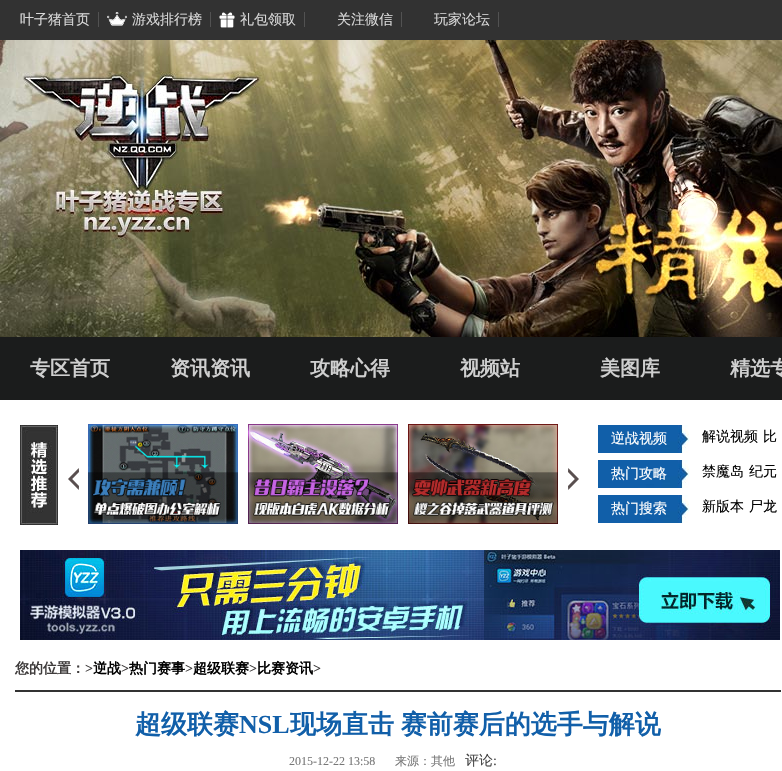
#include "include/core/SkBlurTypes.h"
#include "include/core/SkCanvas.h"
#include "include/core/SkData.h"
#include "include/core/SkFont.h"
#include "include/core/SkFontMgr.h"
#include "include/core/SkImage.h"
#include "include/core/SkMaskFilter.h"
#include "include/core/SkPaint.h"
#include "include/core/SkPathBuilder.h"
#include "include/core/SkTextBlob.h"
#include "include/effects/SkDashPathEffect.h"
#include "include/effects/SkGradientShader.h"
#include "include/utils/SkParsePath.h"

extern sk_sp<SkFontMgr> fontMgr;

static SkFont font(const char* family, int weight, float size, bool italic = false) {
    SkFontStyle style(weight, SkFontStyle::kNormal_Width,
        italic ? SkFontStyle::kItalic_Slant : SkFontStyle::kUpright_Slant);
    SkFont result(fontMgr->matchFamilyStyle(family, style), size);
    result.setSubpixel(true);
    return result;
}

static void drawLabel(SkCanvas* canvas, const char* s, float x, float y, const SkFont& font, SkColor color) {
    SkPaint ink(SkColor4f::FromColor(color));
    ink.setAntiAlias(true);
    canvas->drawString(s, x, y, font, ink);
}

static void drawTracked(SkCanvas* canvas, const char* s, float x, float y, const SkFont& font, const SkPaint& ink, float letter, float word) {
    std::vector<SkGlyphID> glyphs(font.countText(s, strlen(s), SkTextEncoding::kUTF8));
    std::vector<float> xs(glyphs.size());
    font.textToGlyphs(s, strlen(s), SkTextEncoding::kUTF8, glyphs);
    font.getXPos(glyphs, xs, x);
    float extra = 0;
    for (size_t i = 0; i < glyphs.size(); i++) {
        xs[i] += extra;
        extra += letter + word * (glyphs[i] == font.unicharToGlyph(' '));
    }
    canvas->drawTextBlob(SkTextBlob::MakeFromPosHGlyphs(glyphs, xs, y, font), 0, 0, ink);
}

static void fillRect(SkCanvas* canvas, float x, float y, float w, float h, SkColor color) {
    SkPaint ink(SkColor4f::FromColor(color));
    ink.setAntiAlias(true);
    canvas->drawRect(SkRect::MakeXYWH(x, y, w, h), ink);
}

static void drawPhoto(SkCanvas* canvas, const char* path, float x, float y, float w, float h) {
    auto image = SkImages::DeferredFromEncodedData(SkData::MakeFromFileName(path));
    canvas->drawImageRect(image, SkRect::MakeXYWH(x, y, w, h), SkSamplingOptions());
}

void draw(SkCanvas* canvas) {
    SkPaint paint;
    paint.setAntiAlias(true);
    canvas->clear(0xFFFFFFFF);
    fillRect(canvas, 0, 0, 782, 40, 0xFF323232);
    fillRect(canvas, 98, 12, 1, 15, 0xFF525252);
    SkFont font1 = font("WenQuanYi Zen Hei", 500, 14);
    drawLabel(canvas, "叶子猪首页", 20, 24, font1, 0xFFD8D8D8);
    drawPhoto(canvas, "assets/img1.png", 107, 12, 20, 14);
    fillRect(canvas, 210, 12, 1, 15, 0xFF525252);
    drawLabel(canvas, "游戏排行榜", 132, 24, font1, 0xFFD8D8D8);
    drawPhoto(canvas, "assets/img2.png", 219, 12, 16, 16);
    fillRect(canvas, 304, 12, 1, 15, 0xFF525252);
    drawLabel(canvas, "礼包领取", 240, 24, font1, 0xFFD8D8D8);
    fillRect(canvas, 401, 12, 1, 15, 0xFF525252);
    drawLabel(canvas, "关注微信", 337, 24, font1, 0xFFD8D8D8);
    fillRect(canvas, 498, 12, 1, 15, 0xFF525252);
    drawLabel(canvas, "玩家论坛", 434, 24, font1, 0xFFD8D8D8);
    drawPhoto(canvas, "assets/img3.png", 0, 40, 782, 297);
    fillRect(canvas, 0, 337, 782, 63, 0xFF1B1C1C);
    SkFont font2 = font("WenQuanYi Zen Hei", 700, 20);
    drawLabel(canvas, "专区首页", 30, 375, font2, 0xFFCFCFCF);
    drawLabel(canvas, "资讯资讯", 170, 375, font2, 0xFFCFCFCF);
    drawLabel(canvas, "攻略心得", 310, 375, font2, 0xFFCFCFCF);
    drawLabel(canvas, "视频站", 460, 375, font2, 0xFFCFCFCF);
    drawLabel(canvas, "美图库", 600, 375, font2, 0xFFCFCFCF);
    drawLabel(canvas, "精选专", 730, 375, font2, 0xFFCFCFCF);
    drawPhoto(canvas, "assets/img4.png", 20, 425, 38, 100);
    drawPhoto(canvas, "assets/img5.png", 68, 468, 11, 22);
    drawPhoto(canvas, "assets/img6.png", 88, 424, 150, 100);
    drawPhoto(canvas, "assets/img7.png", 248, 424, 150, 100);
    drawPhoto(canvas, "assets/img8.png", 408, 424, 150, 100);
    drawPhoto(canvas, "assets/img9.png", 568, 468, 11, 22);
    drawPhoto(canvas, "assets/img10.png", 598, 425, 91, 28);
    drawLabel(canvas, "逆战视频", 611, 443, font1, 0xFFFFFFFF);
    drawLabel(canvas, "解说视频", 702, 441, font1, 0xFF000000);
    drawLabel(canvas, "比", 763, 441, font1, 0xFF000000);
    drawPhoto(canvas, "assets/img10.png", 598, 460, 91, 28);
    drawLabel(canvas, "热门攻略", 611, 478, font1, 0xFFFFFFFF);
    drawLabel(canvas, "禁魔岛", 702, 476, font1, 0xFF000000);
    drawLabel(canvas, "纪元", 749, 476, font1, 0xFF000000);
    drawPhoto(canvas, "assets/img10.png", 598, 495, 91, 28);
    drawLabel(canvas, "热门搜索", 611, 513, font1, 0xFFFFFFFF);
    drawLabel(canvas, "新版本", 702, 511, font1, 0xFF000000);
    drawLabel(canvas, "尸龙", 749, 511, font1, 0xFF000000);
    drawPhoto(canvas, "assets/img11.png", 20, 550, 760, 90);
    fillRect(canvas, 15, 690, 766, 2, 0xFF333333);
    SkFont font3 = font("WenQuanYi Zen Hei", 700, 14);
    drawLabel(canvas, "您的位置：", 15, 673, font3, 0xFF403D3D);
    SkFont font4 = font("Liberation Serif", 700, 14);
    drawLabel(canvas, ">", 85, 673, font4, 0xFF403D3D);
    drawLabel(canvas, "逆战", 93, 673, font3, 0xFF000000);
    drawLabel(canvas, ">", 121, 673, font4, 0xFF403D3D);
    drawLabel(canvas, "热门赛事", 129, 673, font3, 0xFF000000);
    drawLabel(canvas, ">", 185, 673, font4, 0xFF403D3D);
    drawLabel(canvas, "超级联赛", 193, 673, font3, 0xFF000000);
    drawLabel(canvas, ">", 249, 673, font4, 0xFF403D3D);
    drawLabel(canvas, "比赛资讯", 257, 673, font3, 0xFF000000);
    drawLabel(canvas, ">", 313, 673, font4, 0xFF403D3D);
    SkFont font5 = font("WenQuanYi Zen Hei", 700, 26);
    drawLabel(canvas, "超级联赛", 135, 733, font5, 0xFF115FA9);
    SkFont font6 = font("Liberation Serif", 700, 26);
    drawLabel(canvas, "NSL", 239, 733, font6, 0xFF115FA9);
    paint.setColor(0xFF115FA9);
    drawTracked(canvas, "现场直击 赛前赛后的选手与解说", 290, 733, font5, paint, 0, -1);
    SkFont font7 = font("Liberation Serif", 400, 12);
    drawLabel(canvas, "2015-12-22 13:58", 289, 765, font7, 0xFF777777);
    SkFont font8 = font("WenQuanYi Zen Hei", 500, 12);
    drawLabel(canvas, "来源：其他", 395, 765, font8, 0xFF777777);
    drawLabel(canvas, "评论", 465, 765, font1, 0xFF444444);
    SkFont font9 = font("Liberation Serif", 400, 14);
    drawLabel(canvas, ":", 493, 765, font9, 0xFF444444);
}
